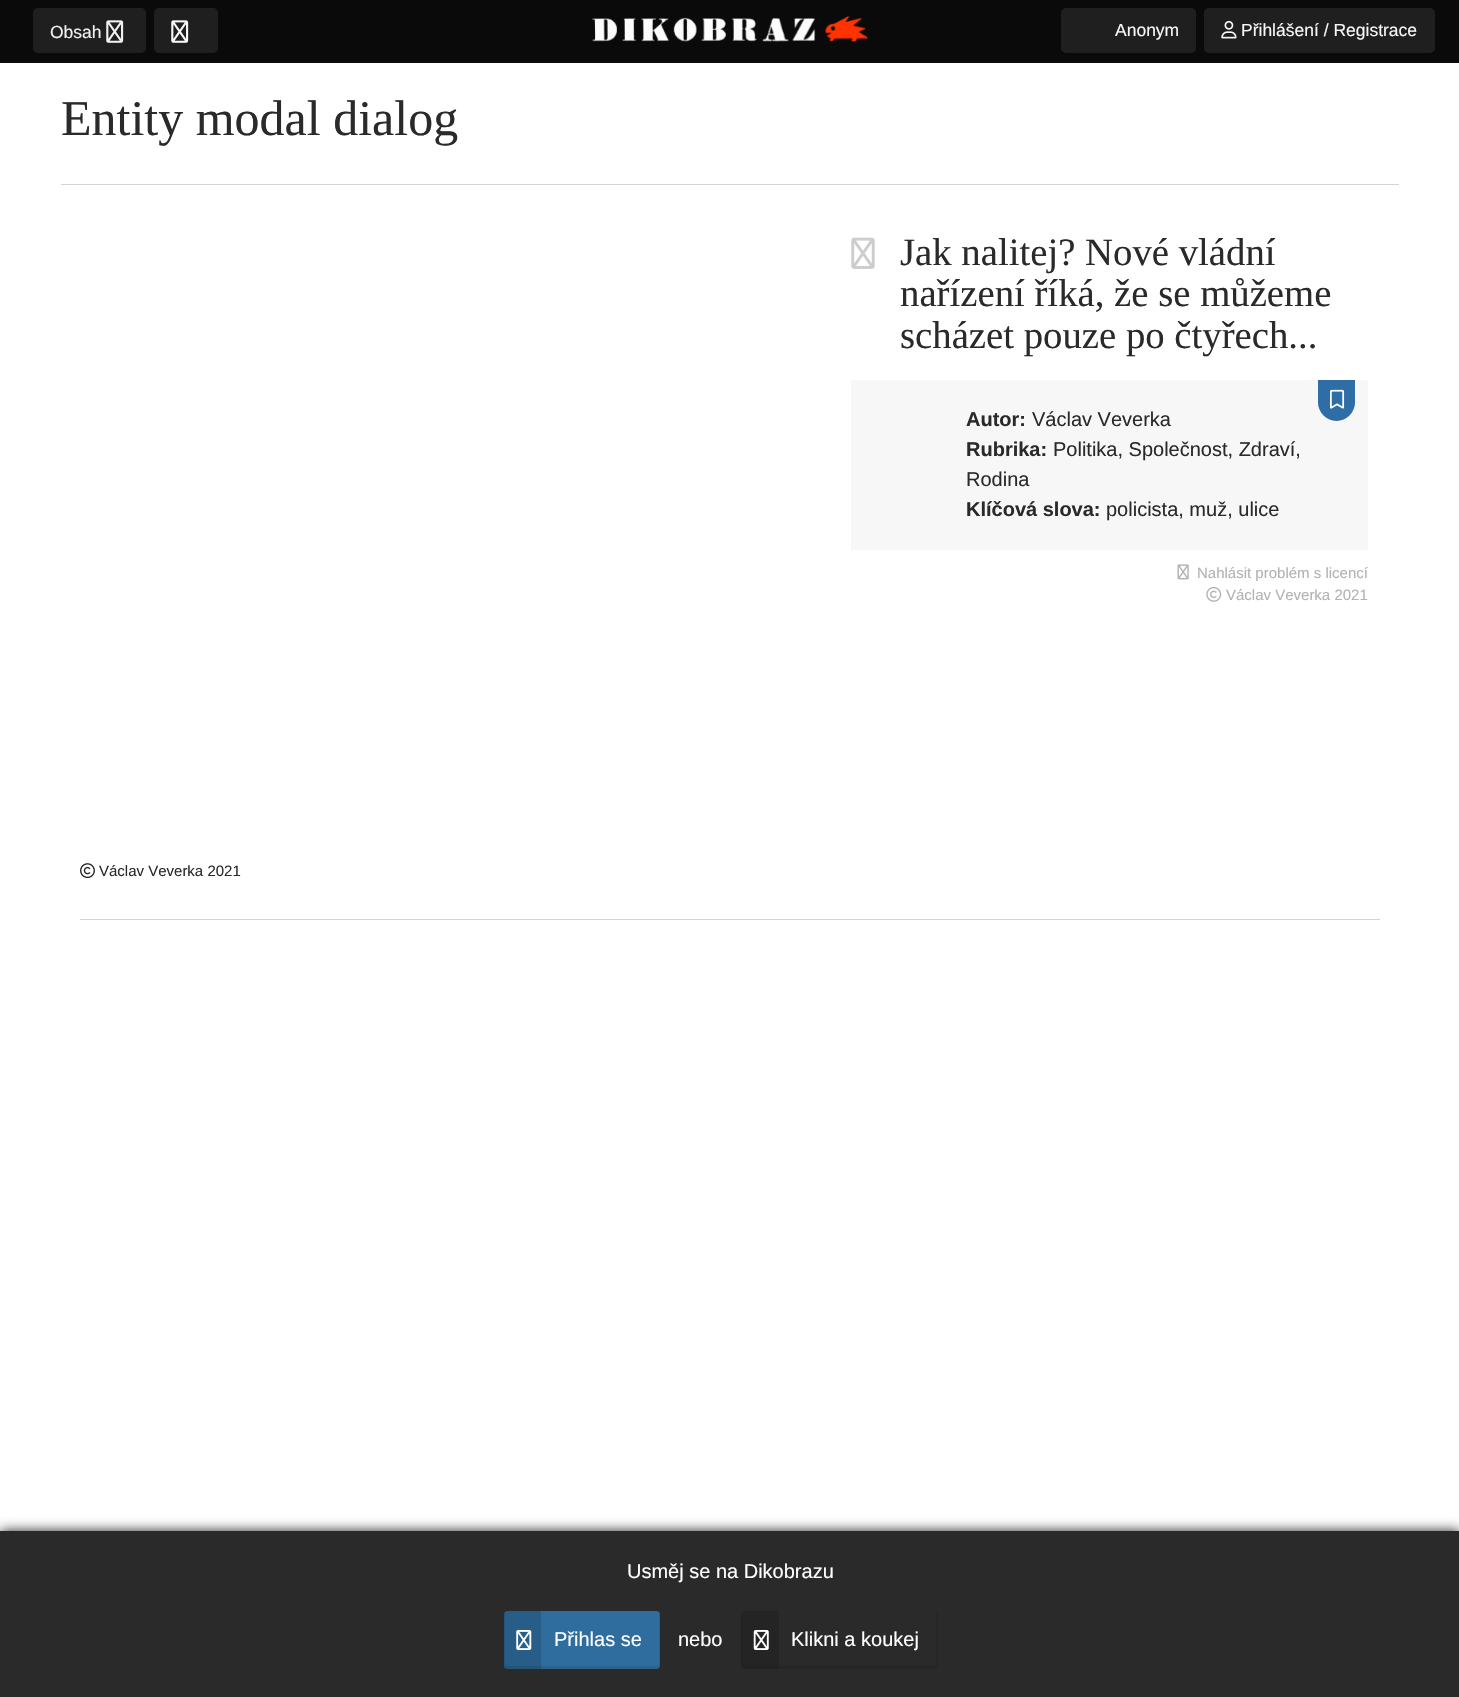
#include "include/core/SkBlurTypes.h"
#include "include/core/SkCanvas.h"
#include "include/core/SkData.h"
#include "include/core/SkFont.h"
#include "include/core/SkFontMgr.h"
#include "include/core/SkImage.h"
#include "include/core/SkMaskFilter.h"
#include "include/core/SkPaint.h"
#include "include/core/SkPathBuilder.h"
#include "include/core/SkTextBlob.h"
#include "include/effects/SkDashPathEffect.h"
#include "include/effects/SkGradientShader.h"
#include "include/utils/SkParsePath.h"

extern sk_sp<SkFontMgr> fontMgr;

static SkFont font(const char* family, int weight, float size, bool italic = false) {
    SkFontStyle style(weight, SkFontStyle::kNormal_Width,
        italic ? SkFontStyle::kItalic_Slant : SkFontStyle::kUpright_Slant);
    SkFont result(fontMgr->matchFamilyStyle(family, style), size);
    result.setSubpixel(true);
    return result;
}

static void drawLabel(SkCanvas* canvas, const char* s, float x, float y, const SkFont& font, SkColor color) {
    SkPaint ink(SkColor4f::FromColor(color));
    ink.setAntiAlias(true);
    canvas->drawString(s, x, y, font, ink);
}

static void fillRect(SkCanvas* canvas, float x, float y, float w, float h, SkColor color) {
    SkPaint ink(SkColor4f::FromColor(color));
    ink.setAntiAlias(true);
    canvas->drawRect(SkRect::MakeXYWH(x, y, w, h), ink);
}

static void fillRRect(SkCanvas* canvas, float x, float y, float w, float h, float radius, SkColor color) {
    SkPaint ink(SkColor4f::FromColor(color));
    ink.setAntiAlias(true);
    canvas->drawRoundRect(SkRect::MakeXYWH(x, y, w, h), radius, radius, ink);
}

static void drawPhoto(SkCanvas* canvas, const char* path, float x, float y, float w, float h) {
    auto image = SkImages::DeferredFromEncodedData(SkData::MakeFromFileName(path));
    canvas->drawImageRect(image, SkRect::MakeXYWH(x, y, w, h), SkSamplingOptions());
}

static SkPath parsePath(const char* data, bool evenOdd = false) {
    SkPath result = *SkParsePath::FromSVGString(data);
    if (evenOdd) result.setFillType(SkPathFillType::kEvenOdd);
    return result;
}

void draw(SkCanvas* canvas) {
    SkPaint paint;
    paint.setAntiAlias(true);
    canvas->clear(0xFFFFFFFF);
    fillRect(canvas, 0, 0, 1459, 63, 0xFF0A0A0A);
    drawPhoto(canvas, "assets/img1.png", 592, 16, 276, 26);
    fillRRect(canvas, 33, 8, 113, 45, 5, 0xFF1F1F1F);
    SkFont font1 = font("Liberation Sans", 400, 17.5f);
    drawLabel(canvas, "Obsah", 50, 38, font1, 0xFFF0F0F0);
    drawPhoto(canvas, "assets/img2.png", 106, 20, 18, 23);
    fillRRect(canvas, 154, 8, 64, 45, 5, 0xFF1F1F1F);
    drawPhoto(canvas, "assets/img3.png", 171, 20, 18, 23);
    fillRRect(canvas, 1061, 8, 135, 45, 5, 0xFF1F1F1F);
    drawLabel(canvas, "Anonym", 1115, 36, font1, 0xFFF7F7F7);
    fillRRect(canvas, 1204, 8, 231, 45, 5, 0xFF1F1F1F);
    drawPhoto(canvas, "assets/img4.png", 1221, 20, 16, 19);
    drawLabel(canvas, "Přihlášení / Registrace", 1241, 36, font1, 0xFFF7F7F7);
    SkFont font2 = font("Liberation Serif", 400, 50);
    drawLabel(canvas, "Entity modal dialog", 61, 135, font2, 0xFF2A2A2A);
    fillRect(canvas, 61, 184, 1338, 1, 0xFFD5D5D5);
    drawPhoto(canvas, "assets/img5.png", 851, 237, 24, 32);
    SkFont font3 = font("Liberation Serif", 400, 38.75f);
    drawLabel(canvas, "Jak nalitej? Nové vládní", 900, 265, font3, 0xFF2A2A2A);
    drawLabel(canvas, "nařízení říká, že se můžeme", 900, 306, font3, 0xFF2A2A2A);
    drawLabel(canvas, "scházet pouze po čtyřech...", 900, 348, font3, 0xFF2A2A2A);
    fillRect(canvas, 851, 380, 517, 170, 0xFFF7F7F7);
    paint.setColor(0xFF2E6DA6);
    canvas->drawPath(parsePath("M1318 380H1355V402.5C1355 412.5 1346.5 421 1336.5 421C1326.5 421 1318 412.5 1318 402.5Z"), paint);
    drawPhoto(canvas, "assets/img6.png", 1330, 389, 15, 20);
    SkFont font4 = font("Liberation Sans", 700, 20);
    drawLabel(canvas, "Autor:", 966, 426, font4, 0xFF2A2A2A);
    SkFont font5 = font("Liberation Sans", 400, 20);
    drawLabel(canvas, "Václav Veverka", 1032, 426, font5, 0xFF2A2A2A);
    drawLabel(canvas, "Rubrika:", 966, 456, font4, 0xFF2A2A2A);
    drawLabel(canvas, "Politika, Společnost, Zdraví,", 1053, 456, font5, 0xFF2A2A2A);
    drawLabel(canvas, "Rodina", 966, 486, font5, 0xFF2A2A2A);
    drawLabel(canvas, "Klíčová slova:", 966, 516, font4, 0xFF2A2A2A);
    drawLabel(canvas, "policista, muž, ulice", 1106, 516, font5, 0xFF2A2A2A);
    drawPhoto(canvas, "assets/img7.png", 1177, 564, 12, 16);
    SkFont font6 = font("Liberation Sans", 400, 15);
    drawLabel(canvas, "Nahlásit problém s licencí", 1197, 578, font6, 0xFFB2B2B2);
    drawPhoto(canvas, "assets/img8.png", 1206, 586, 16, 16);
    drawLabel(canvas, "Václav Veverka 2021", 1226, 600, font6, 0xFFB2B2B2);
    drawPhoto(canvas, "assets/img9.png", 80, 863, 15, 16);
    drawLabel(canvas, "Václav Veverka 2021", 99, 876, font6, 0xFF2A2A2A);
    fillRect(canvas, 80, 919, 1300, 1, 0xFFD5D5D5);
    paint.setColor(0xFF1F1F1F);
    paint.setMaskFilter(SkMaskFilter::MakeBlur(kNormal_SkBlurStyle, 6));
    canvas->drawRect(SkRect::MakeXYWH(0, 1531, 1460, 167), paint);
    paint.setMaskFilter(nullptr);
    fillRect(canvas, 0, 1531, 1459, 166, 0xFF2A2A2A);
    drawLabel(canvas, "Usměj se na Dikobrazu", 627, 1578, font5, 0xFFFFFFFF);
    fillRRect(canvas, 504, 1611, 156, 58, 4, 0xFF2E6D9D);
    paint.setColor(0x1A000000);
    canvas->drawPath(parsePath("M658 1612C659 1612 659 1613 659 1614V1664C659 1665 658 1666 656 1666H508C506 1666 505 1665 505 1664V1614C505 1613 505 1612 506 1612C505 1612 504 1614 504 1615V1665C504 1667 506 1669 508 1669H656C658 1669 660 1667 660 1665V1615C660 1614 659 1612 658 1612Z"), paint);
    paint.setColor(0x26000000);
    canvas->drawPath(parsePath("M508 1611H541V1669H508C506 1669 504 1667 504 1665V1615C504 1613 506 1611 508 1611Z"), paint);
    drawPhoto(canvas, "assets/img10.png", 516, 1630, 16, 20);
    drawLabel(canvas, "Přihlas se", 554, 1646, font5, 0xFFFFFFFF);
    drawLabel(canvas, "nebo", 678, 1646, font5, 0xFFFFFFFF);
    paint.setColor(0xFF262626);
    canvas->drawPath(parsePath("M745 1611C743 1611 741 1613 741 1615V1665C741 1667 743 1669 745 1669H934C936 1669 938 1667 938 1665V1615C938 1613 936 1611 934 1611C935 1611 936 1612 936 1614V1664C936 1665 935 1666 934 1666H745C744 1666 742 1665 742 1664V1614C742 1612 744 1611 745 1611Z"), paint);
    paint.setColor(0x26000000);
    canvas->drawPath(parsePath("M745 1611H779V1669H745C743 1669 741 1667 741 1665V1615C741 1613 743 1611 745 1611Z"), paint);
    drawPhoto(canvas, "assets/img11.png", 753, 1630, 16, 20);
    drawLabel(canvas, "Klikni a koukej", 791, 1646, font5, 0xFFFFFFFF);
}
